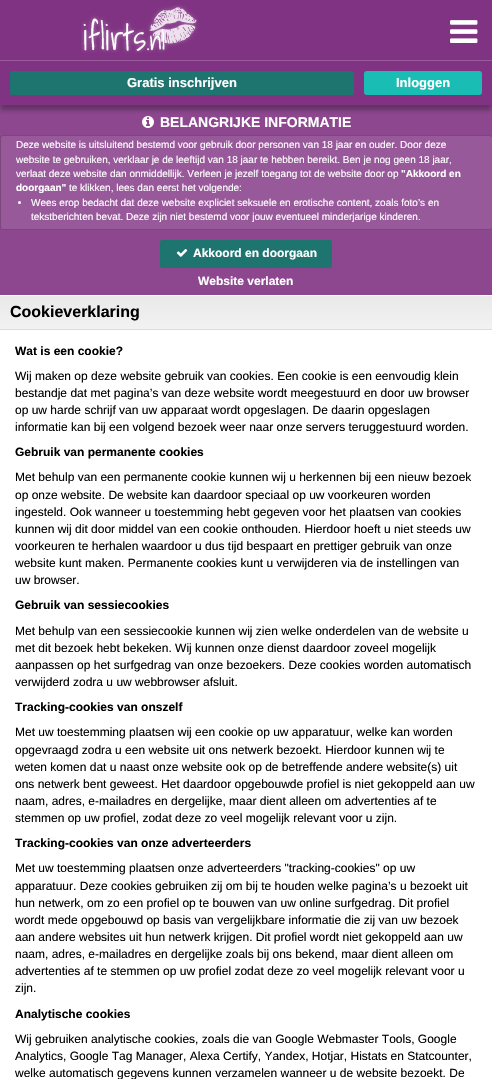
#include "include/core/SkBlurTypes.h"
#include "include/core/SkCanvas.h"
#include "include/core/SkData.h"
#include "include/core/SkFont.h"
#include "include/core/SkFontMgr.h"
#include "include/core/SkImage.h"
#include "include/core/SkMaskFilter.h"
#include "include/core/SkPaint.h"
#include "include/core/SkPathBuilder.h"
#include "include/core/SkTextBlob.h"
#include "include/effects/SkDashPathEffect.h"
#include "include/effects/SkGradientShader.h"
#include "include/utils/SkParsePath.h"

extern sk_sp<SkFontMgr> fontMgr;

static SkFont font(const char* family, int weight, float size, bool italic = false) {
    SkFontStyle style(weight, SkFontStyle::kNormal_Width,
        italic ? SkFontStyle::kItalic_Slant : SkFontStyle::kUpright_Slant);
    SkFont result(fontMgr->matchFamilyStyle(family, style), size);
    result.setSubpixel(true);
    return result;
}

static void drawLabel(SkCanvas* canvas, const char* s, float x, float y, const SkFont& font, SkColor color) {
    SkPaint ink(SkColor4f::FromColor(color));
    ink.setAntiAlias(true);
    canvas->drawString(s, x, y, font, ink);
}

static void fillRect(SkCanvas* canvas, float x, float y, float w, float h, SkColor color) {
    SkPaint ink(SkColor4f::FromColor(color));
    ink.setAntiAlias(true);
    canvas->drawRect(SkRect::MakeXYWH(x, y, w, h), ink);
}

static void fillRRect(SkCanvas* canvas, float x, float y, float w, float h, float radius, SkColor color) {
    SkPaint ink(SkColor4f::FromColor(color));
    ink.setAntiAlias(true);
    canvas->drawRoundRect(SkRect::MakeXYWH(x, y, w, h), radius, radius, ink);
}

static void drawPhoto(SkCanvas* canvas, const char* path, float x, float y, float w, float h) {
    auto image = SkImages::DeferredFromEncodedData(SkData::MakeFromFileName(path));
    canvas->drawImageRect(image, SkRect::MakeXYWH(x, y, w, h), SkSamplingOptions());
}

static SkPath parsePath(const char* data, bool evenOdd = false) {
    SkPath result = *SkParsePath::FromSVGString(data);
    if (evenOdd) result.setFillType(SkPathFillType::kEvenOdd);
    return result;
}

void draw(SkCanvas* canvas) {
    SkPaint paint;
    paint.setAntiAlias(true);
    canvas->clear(0xFFFFFFFF);
    fillRect(canvas, 0, 105, 492, 190, 0xFF8D478F);
    drawPhoto(canvas, "assets/img3.png", 142, 116, 12, 12);
    paint.setColor(0x4D000000);
    paint.setMaskFilter(SkMaskFilter::MakeBlur(kNormal_SkBlurStyle, 2.5f));
    canvas->drawRect(SkRect::MakeXYWH(0, 5, 492, 105), paint);
    paint.setMaskFilter(nullptr);
    fillRect(canvas, 0, 0, 492, 105, 0xFF803382);
    drawPhoto(canvas, "assets/img1.png", 81, 5, 117, 48);
    drawPhoto(canvas, "assets/img2.png", 450, 20, 28, 23);
    fillRect(canvas, 0, 60, 492, 1, 0xFF995C9B);
    fillRRect(canvas, 10, 71, 344, 24, 2, 0xFF1E756F);
    SkFont font1 = font("Liberation Sans", 700, 13);
    drawLabel(canvas, "Gratis inschrijven", 127, 87, font1, 0xFFFFFFFF);
    fillRRect(canvas, 364, 71, 118, 24, 3, 0xFF1ABDB3);
    drawLabel(canvas, "Inloggen", 396, 87, font1, 0xFFFFFFFF);
    SkFont font2 = font("Liberation Sans", 700, 14);
    drawLabel(canvas, "BELANGRIJKE INFORMATIE", 160, 127, font2, 0xFFFFFFFF);
    fillRRect(canvas, 0, 135, 492, 95, 3, 0xFF98599A);
    paint.setColor(0x33000000);
    canvas->drawPath(parsePath("M3 135H489C491 135 492 136 492 138V227C492 229 491 230 489 230H3C1 230 0 229 0 227V138C0 136 1 135 3 135ZM3 136H489C491 136 492 137 492 138V227C492 228 491 229 489 229H3C2 229 1 228 1 227V138C1 137 2 136 3 136Z", true), paint);
    SkFont font3 = font("Liberation Sans", 400, 10);
    drawLabel(canvas, "Deze website is uitsluitend bestemd voor gebruik door personen van 18 jaar en ouder. Door deze", 16, 148, font3, 0xFFFFFFFF);
    drawLabel(canvas, "website te gebruiken, verklaar je de leeftijd van 18 jaar te hebben bereikt. Ben je nog geen 18 jaar,", 16, 163, font3, 0xFFFFFFFF);
    drawLabel(canvas, "verlaat deze website dan onmiddellijk. Verleen je jezelf toegang tot de website door op", 16, 177, font3, 0xFFFFFFFF);
    SkFont font4 = font("Liberation Sans", 700, 10);
    drawLabel(canvas, "\"Akkoord en", 401, 177, font4, 0xFFFFFFFF);
    drawLabel(canvas, "doorgaan\"", 16, 191, font4, 0xFFFFFFFF);
    drawLabel(canvas, "te klikken, lees dan eerst het volgende:", 69, 191, font3, 0xFFFFFFFF);
    paint.setColor(0xFFFFFFFF);
    canvas->drawCircle(19.5f, 202.5f, 1.5f, paint);
    drawLabel(canvas, "Wees erop bedacht dat deze website expliciet seksuele en erotische content, zoals foto’s en", 31, 206, font3, 0xFFFFFFFF);
    drawLabel(canvas, "tekstberichten bevat. Deze zijn niet bestemd voor jouw eventueel minderjarige kinderen.", 31, 220, font3, 0xFFFFFFFF);
    fillRRect(canvas, 160, 240, 172, 28, 2, 0xFF1E756F);
    drawPhoto(canvas, "assets/img4.png", 176, 249, 12, 8);
    SkFont font5 = font("Liberation Sans", 700, 12);
    drawLabel(canvas, "Akkoord en doorgaan", 193, 257, font5, 0xFFFFFFFF);
    drawLabel(canvas, "Website verlaten", 198, 285, font5, 0xFFFFFFFF);
    {
        const SkColor colors[] = {0xFFE9E9E9, 0xFFF2F2F2};
        const float stops[] = {0, 1};
        const SkPoint ends[] = {{246, 296}, {246, 329}};
        paint.setShader(SkGradientShader::MakeLinear(ends, colors, stops, 2, SkTileMode::kClamp));
        paint.setAlpha(255);
    }
    canvas->drawRect(SkRect::MakeXYWH(0, 296, 492, 33), paint);
    fillRect(canvas, 0, 329, 492, 1, 0xFFDDDDDD);
    SkFont font6 = font("Liberation Sans", 700, 16);
    drawLabel(canvas, "Cookieverklaring", 10, 317, font6, 0xFF000000);
    drawLabel(canvas, "Wat is een cookie?", 15, 355, font5, 0xFF000000);
    SkFont font7 = font("Liberation Sans", 400, 12);
    drawLabel(canvas, "Wij maken op deze website gebruik van cookies. Een cookie is een eenvoudig klein", 15, 380, font7, 0xFF000000);
    drawLabel(canvas, "bestandje dat met pagina’s van deze website wordt meegestuurd en door uw browser", 15, 397, font7, 0xFF000000);
    drawLabel(canvas, "op uw harde schrijf van uw apparaat wordt opgeslagen. De daarin opgeslagen", 15, 414, font7, 0xFF000000);
    drawLabel(canvas, "informatie kan bij een volgend bezoek weer naar onze servers teruggestuurd worden.", 15, 431, font7, 0xFF000000);
    drawLabel(canvas, "Gebruik van permanente cookies", 15, 456, font5, 0xFF000000);
    drawLabel(canvas, "Met behulp van een permanente cookie kunnen wij u herkennen bij een nieuw bezoek", 15, 481, font7, 0xFF000000);
    drawLabel(canvas, "op onze website. De website kan daardoor speciaal op uw voorkeuren worden", 15, 499, font7, 0xFF000000);
    drawLabel(canvas, "ingesteld. Ook wanneer u toestemming hebt gegeven voor het plaatsen van cookies", 15, 516, font7, 0xFF000000);
    drawLabel(canvas, "kunnen wij dit door middel van een cookie onthouden. Hierdoor hoeft u niet steeds uw", 15, 533, font7, 0xFF000000);
    drawLabel(canvas, "voorkeuren te herhalen waardoor u dus tijd bespaart en prettiger gebruik van onze", 15, 550, font7, 0xFF000000);
    drawLabel(canvas, "website kunt maken. Permanente cookies kunt u verwijderen via de instellingen van", 15, 567, font7, 0xFF000000);
    drawLabel(canvas, "uw browser.", 15, 584, font7, 0xFF000000);
    drawLabel(canvas, "Gebruik van sessiecookies", 15, 609, font5, 0xFF000000);
    drawLabel(canvas, "Met behulp van een sessiecookie kunnen wij zien welke onderdelen van de website u", 15, 635, font7, 0xFF000000);
    drawLabel(canvas, "met dit bezoek hebt bekeken. Wij kunnen onze dienst daardoor zoveel mogelijk", 15, 652, font7, 0xFF000000);
    drawLabel(canvas, "aanpassen op het surfgedrag van onze bezoekers. Deze cookies worden automatisch", 15, 669, font7, 0xFF000000);
    drawLabel(canvas, "verwijderd zodra u uw webbrowser afsluit.", 15, 686, font7, 0xFF000000);
    drawLabel(canvas, "Tracking-cookies van onszelf", 15, 711, font5, 0xFF000000);
    drawLabel(canvas, "Met uw toestemming plaatsen wij een cookie op uw apparatuur, welke kan worden", 15, 736, font7, 0xFF000000);
    drawLabel(canvas, "opgevraagd zodra u een website uit ons netwerk bezoekt. Hierdoor kunnen wij te", 15, 754, font7, 0xFF000000);
    drawLabel(canvas, "weten komen dat u naast onze website ook op de betreffende andere website(s) uit", 15, 771, font7, 0xFF000000);
    drawLabel(canvas, "ons netwerk bent geweest. Het daardoor opgebouwde profiel is niet gekoppeld aan uw", 15, 788, font7, 0xFF000000);
    drawLabel(canvas, "naam, adres, e-mailadres en dergelijke, maar dient alleen om advertenties af te", 15, 805, font7, 0xFF000000);
    drawLabel(canvas, "stemmen op uw profiel, zodat deze zo veel mogelijk relevant voor u zijn.", 15, 822, font7, 0xFF000000);
    drawLabel(canvas, "Tracking-cookies van onze adverteerders", 15, 847, font5, 0xFF000000);
    drawLabel(canvas, "Met uw toestemming plaatsen onze adverteerders \"tracking-cookies\" op uw", 15, 872, font7, 0xFF000000);
    drawLabel(canvas, "apparatuur. Deze cookies gebruiken zij om bij te houden welke pagina’s u bezoekt uit", 15, 890, font7, 0xFF000000);
    drawLabel(canvas, "hun netwerk, om zo een profiel op te bouwen van uw online surfgedrag. Dit profiel", 15, 907, font7, 0xFF000000);
    drawLabel(canvas, "wordt mede opgebouwd op basis van vergelijkbare informatie die zij van uw bezoek", 15, 924, font7, 0xFF000000);
    drawLabel(canvas, "aan andere websites uit hun netwerk krijgen. Dit profiel wordt niet gekoppeld aan uw", 15, 941, font7, 0xFF000000);
    drawLabel(canvas, "naam, adres, e-mailadres en dergelijke zoals bij ons bekend, maar dient alleen om", 15, 958, font7, 0xFF000000);
    drawLabel(canvas, "advertenties af te stemmen op uw profiel zodat deze zo veel mogelijk relevant voor u", 15, 975, font7, 0xFF000000);
    drawLabel(canvas, "zijn.", 15, 992, font7, 0xFF000000);
    drawLabel(canvas, "Analytische cookies", 15, 1018, font5, 0xFF000000);
    drawLabel(canvas, "Wij gebruiken analytische cookies, zoals die van Google Webmaster Tools, Google", 15, 1043, font7, 0xFF000000);
    drawLabel(canvas, "Analytics, Google Tag Manager, Alexa Certify, Yandex, Hotjar, Histats en Statcounter,", 15, 1060, font7, 0xFF000000);
    drawLabel(canvas, "welke automatisch gegevens kunnen verzamelen wanneer u de website bezoekt. De", 15, 1077, font7, 0xFF000000);
}
